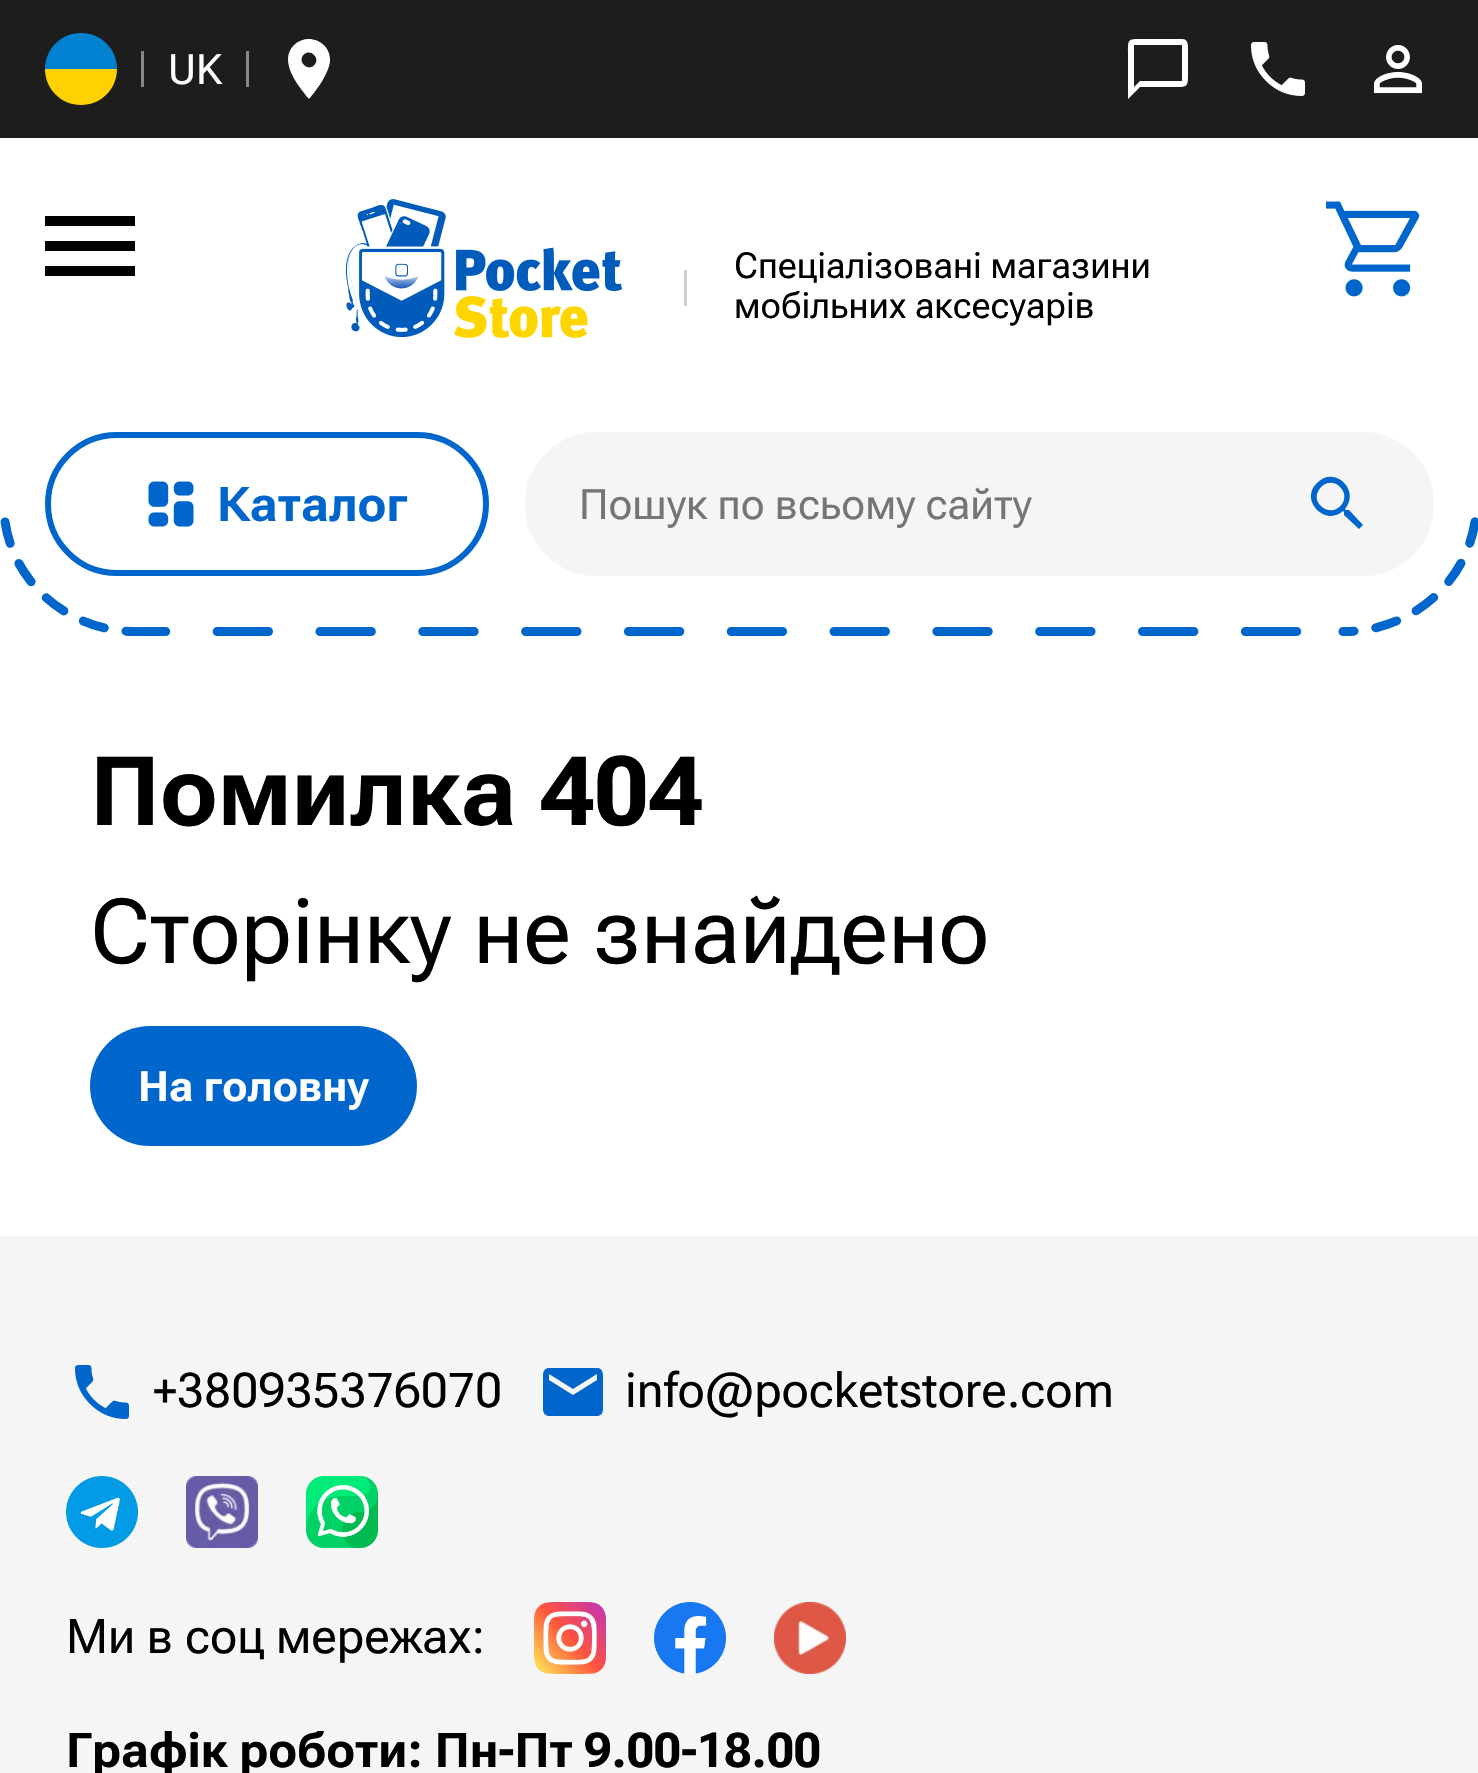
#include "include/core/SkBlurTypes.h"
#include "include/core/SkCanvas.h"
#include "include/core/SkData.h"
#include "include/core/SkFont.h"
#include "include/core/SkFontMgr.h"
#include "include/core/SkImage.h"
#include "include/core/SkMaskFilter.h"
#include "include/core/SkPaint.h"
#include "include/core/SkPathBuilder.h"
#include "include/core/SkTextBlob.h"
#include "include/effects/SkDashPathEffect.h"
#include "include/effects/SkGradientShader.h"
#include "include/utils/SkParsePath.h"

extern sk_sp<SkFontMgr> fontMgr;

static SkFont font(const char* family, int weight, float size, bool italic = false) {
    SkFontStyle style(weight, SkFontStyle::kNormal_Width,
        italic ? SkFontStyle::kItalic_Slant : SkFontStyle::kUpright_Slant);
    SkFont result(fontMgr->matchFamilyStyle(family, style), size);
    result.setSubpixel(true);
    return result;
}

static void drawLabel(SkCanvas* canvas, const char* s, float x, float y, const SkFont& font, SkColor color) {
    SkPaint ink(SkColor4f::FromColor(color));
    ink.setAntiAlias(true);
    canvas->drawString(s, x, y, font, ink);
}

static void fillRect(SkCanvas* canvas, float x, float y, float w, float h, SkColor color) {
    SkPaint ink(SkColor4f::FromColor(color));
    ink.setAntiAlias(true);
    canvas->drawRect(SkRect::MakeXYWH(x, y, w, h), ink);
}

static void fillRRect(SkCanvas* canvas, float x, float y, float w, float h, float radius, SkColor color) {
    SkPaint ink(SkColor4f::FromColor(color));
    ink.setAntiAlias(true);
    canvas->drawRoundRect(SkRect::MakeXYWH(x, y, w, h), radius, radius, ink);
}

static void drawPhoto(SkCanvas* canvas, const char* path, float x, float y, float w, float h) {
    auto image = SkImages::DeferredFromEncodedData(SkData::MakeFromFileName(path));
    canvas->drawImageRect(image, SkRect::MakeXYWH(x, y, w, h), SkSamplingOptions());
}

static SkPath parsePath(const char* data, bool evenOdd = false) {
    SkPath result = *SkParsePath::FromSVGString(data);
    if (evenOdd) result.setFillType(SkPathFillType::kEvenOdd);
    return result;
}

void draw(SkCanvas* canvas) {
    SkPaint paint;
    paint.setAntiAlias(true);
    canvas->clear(0xFFFFFFFF);
    fillRect(canvas, 0, 0, 1478, 138, 0xFF1D1D1D);
    paint.setColor(0xFF0082D1);
    canvas->drawPath(parsePath("M81 33C101 33 117 49 117 69H45C45 49 61 33 81 33Z"), paint);
    paint.setColor(0xFFFFD100);
    canvas->drawPath(parsePath("M45 69H117C117 89 101 105 81 105C61 105 45 89 45 69Z"), paint);
    fillRect(canvas, 141, 51, 3, 36, 0xFF888787);
    SkFont font1 = font("Roboto Flex", 400, 42);
    drawLabel(canvas, "UK", 168, 84, font1, 0xFFFFFFFF);
    fillRect(canvas, 246, 51, 3, 36, 0xFF888787);
    paint.setColor(0xFFFFFFFF);
    canvas->drawPath(parsePath("M304 65C311 72 321 62 314 55C307 48 297 58 304 65ZM294 45C308 32 331 42 330 61C329 73 317 90 309 99C298 86 278 61 294 45Z"), paint);
    canvas->drawPath(parsePath("M1182 81V45H1134V87L1140 81ZM1182 39C1189 39 1188 47 1188 51V75C1188 87 1187 87 1175 87H1140L1128 99V54C1128 39 1127 39 1142 39Z"), paint);
    drawPhoto(canvas, "assets/img1.png", 1251, 42, 54, 54);
    drawPhoto(canvas, "assets/img2.png", 1373, 45, 50, 49);
    paint.setColor(0xFF000000);
    canvas->drawPath(parsePath("M45 216H135V226H45ZM45 251V241H135V251ZM45 276V266H135V276Z"), paint);
    drawPhoto(canvas, "assets/img3.png", 345, 199, 277, 139);
    fillRect(canvas, 684, 270, 3, 36, 0xFFCFCFCF);
    SkFont font2 = font("Roboto Flex", 400, 36);
    drawLabel(canvas, "Спеціалізовані магазини", 734, 278, font2, 0xFF000000);
    drawLabel(canvas, "мобільних аксесуарів", 734, 318, font2, 0xFF000000);
    drawPhoto(canvas, "assets/img4.png", 1326, 201, 94, 96);
    paint.setStroke(true);
    paint.setStrokeWidth(6);
    paint.setColor(0xFF0066CC);
    canvas->drawRoundRect(SkRect::MakeXYWH(48, 435, 438, 138), 69, 69, paint);
    drawPhoto(canvas, "assets/img5.png", 148, 481, 46, 46);
    SkFont font3 = font("Roboto Flex", 700, 48);
    drawLabel(canvas, "Каталог", 217, 521, font3, 0xFF0066CC);
    paint.setStroke(false);
    paint.setColor(0xFFF5F5F5);
    canvas->drawRoundRect(SkRect::MakeXYWH(528, 435, 903, 138), 69, 69, paint);
    paint.setStroke(true);
    canvas->drawRoundRect(SkRect::MakeXYWH(528, 435, 903, 138), 69, 69, paint);
    drawLabel(canvas, "Пошук по всьому сайту", 579, 519, font1, 0xFF757575);
    paint.setStroke(false);
    paint.setColor(0xFF0066CC);
    canvas->drawPath(parsePath("M1321 506C1334 519 1353 500 1340 487C1328 474 1308 494 1321 506ZM1349 510L1363 525L1359 529L1344 515V512L1343 511C1325 527 1299 500 1317 483C1334 465 1361 490 1345 509L1346 510Z"), paint);
    paint.setStroke(true);
    paint.setStrokeWidth(9);
    paint.setStrokeCap(SkPaint::kRound_Cap);
    paint.setPathEffect(SkDashPathEffect::Make({{51.41f, 51.41f}}, 25.7f));
    canvas->drawPath(parsePath("M140 631.5H1342"), paint);
    paint.setPathEffect(nullptr);
    paint.setPathEffect(SkDashPathEffect::Make({{22, 22}}, 11));
    canvas->drawPath(parsePath("M137 631.5C70.5 632 14 585 5 521.5V504"), paint);
    paint.setPathEffect(nullptr);
    paint.setPathEffect(SkDashPathEffect::Make({{22, 22}}, 11));
    canvas->drawPath(parsePath("M1343 631.5C1409 632 1465.5 585 1475 521.5V504"), paint);
    paint.setPathEffect(nullptr);
    SkFont font4 = font("Roboto Flex", 700, 96);
    drawLabel(canvas, "Помилка 404", 90, 825, font4, 0xFF000000);
    SkFont font5 = font("Roboto Flex", 400, 90);
    drawLabel(canvas, "Сторінку не знайдено", 90, 963, font5, 0xFF000000);
    fillRRect(canvas, 90, 1026, 327, 120, 60, 0xFF0066CC);
    SkFont font6 = font("Roboto Flex", 700, 42);
    drawLabel(canvas, "На головну", 138, 1101, font6, 0xFFFFFFFF);
    fillRect(canvas, 0, 1236, 1478, 537, 0xFFF5F5F5);
    drawPhoto(canvas, "assets/img6.png", 75, 1365, 54, 54);
    SkFont font7 = font("Roboto Flex", 400, 48);
    drawLabel(canvas, "+380935376070", 153, 1407, font7, 0xFF000000);
    paint.setStroke(false);
    canvas->drawPath(parsePath("M597 1380V1374L573 1389L549 1374V1380L573 1395ZM597 1368C604 1368 603 1376 603 1380V1404C603 1408 604 1415 598 1416H548C542 1415 543 1408 543 1404V1380C543 1376 542 1369 548 1368Z"), paint);
    drawLabel(canvas, "info@pocketstore.com", 625, 1407, font7, 0xFF000000);
    drawPhoto(canvas, "assets/img7.png", 66, 1476, 72, 72);
    drawPhoto(canvas, "assets/img8.png", 186, 1476, 72, 72);
    drawPhoto(canvas, "assets/img9.png", 306, 1476, 72, 72);
    drawLabel(canvas, "Ми в соц мережах:", 66, 1653, font7, 0xFF000000);
    drawPhoto(canvas, "assets/img10.png", 534, 1602, 72, 72);
    drawPhoto(canvas, "assets/img11.png", 654, 1602, 72, 72);
    drawPhoto(canvas, "assets/img12.png", 774, 1602, 72, 72);
    drawLabel(canvas, "Графік роботи: Пн-Пт 9.00-18.00", 66, 1767, font3, 0xFF000000);
}
